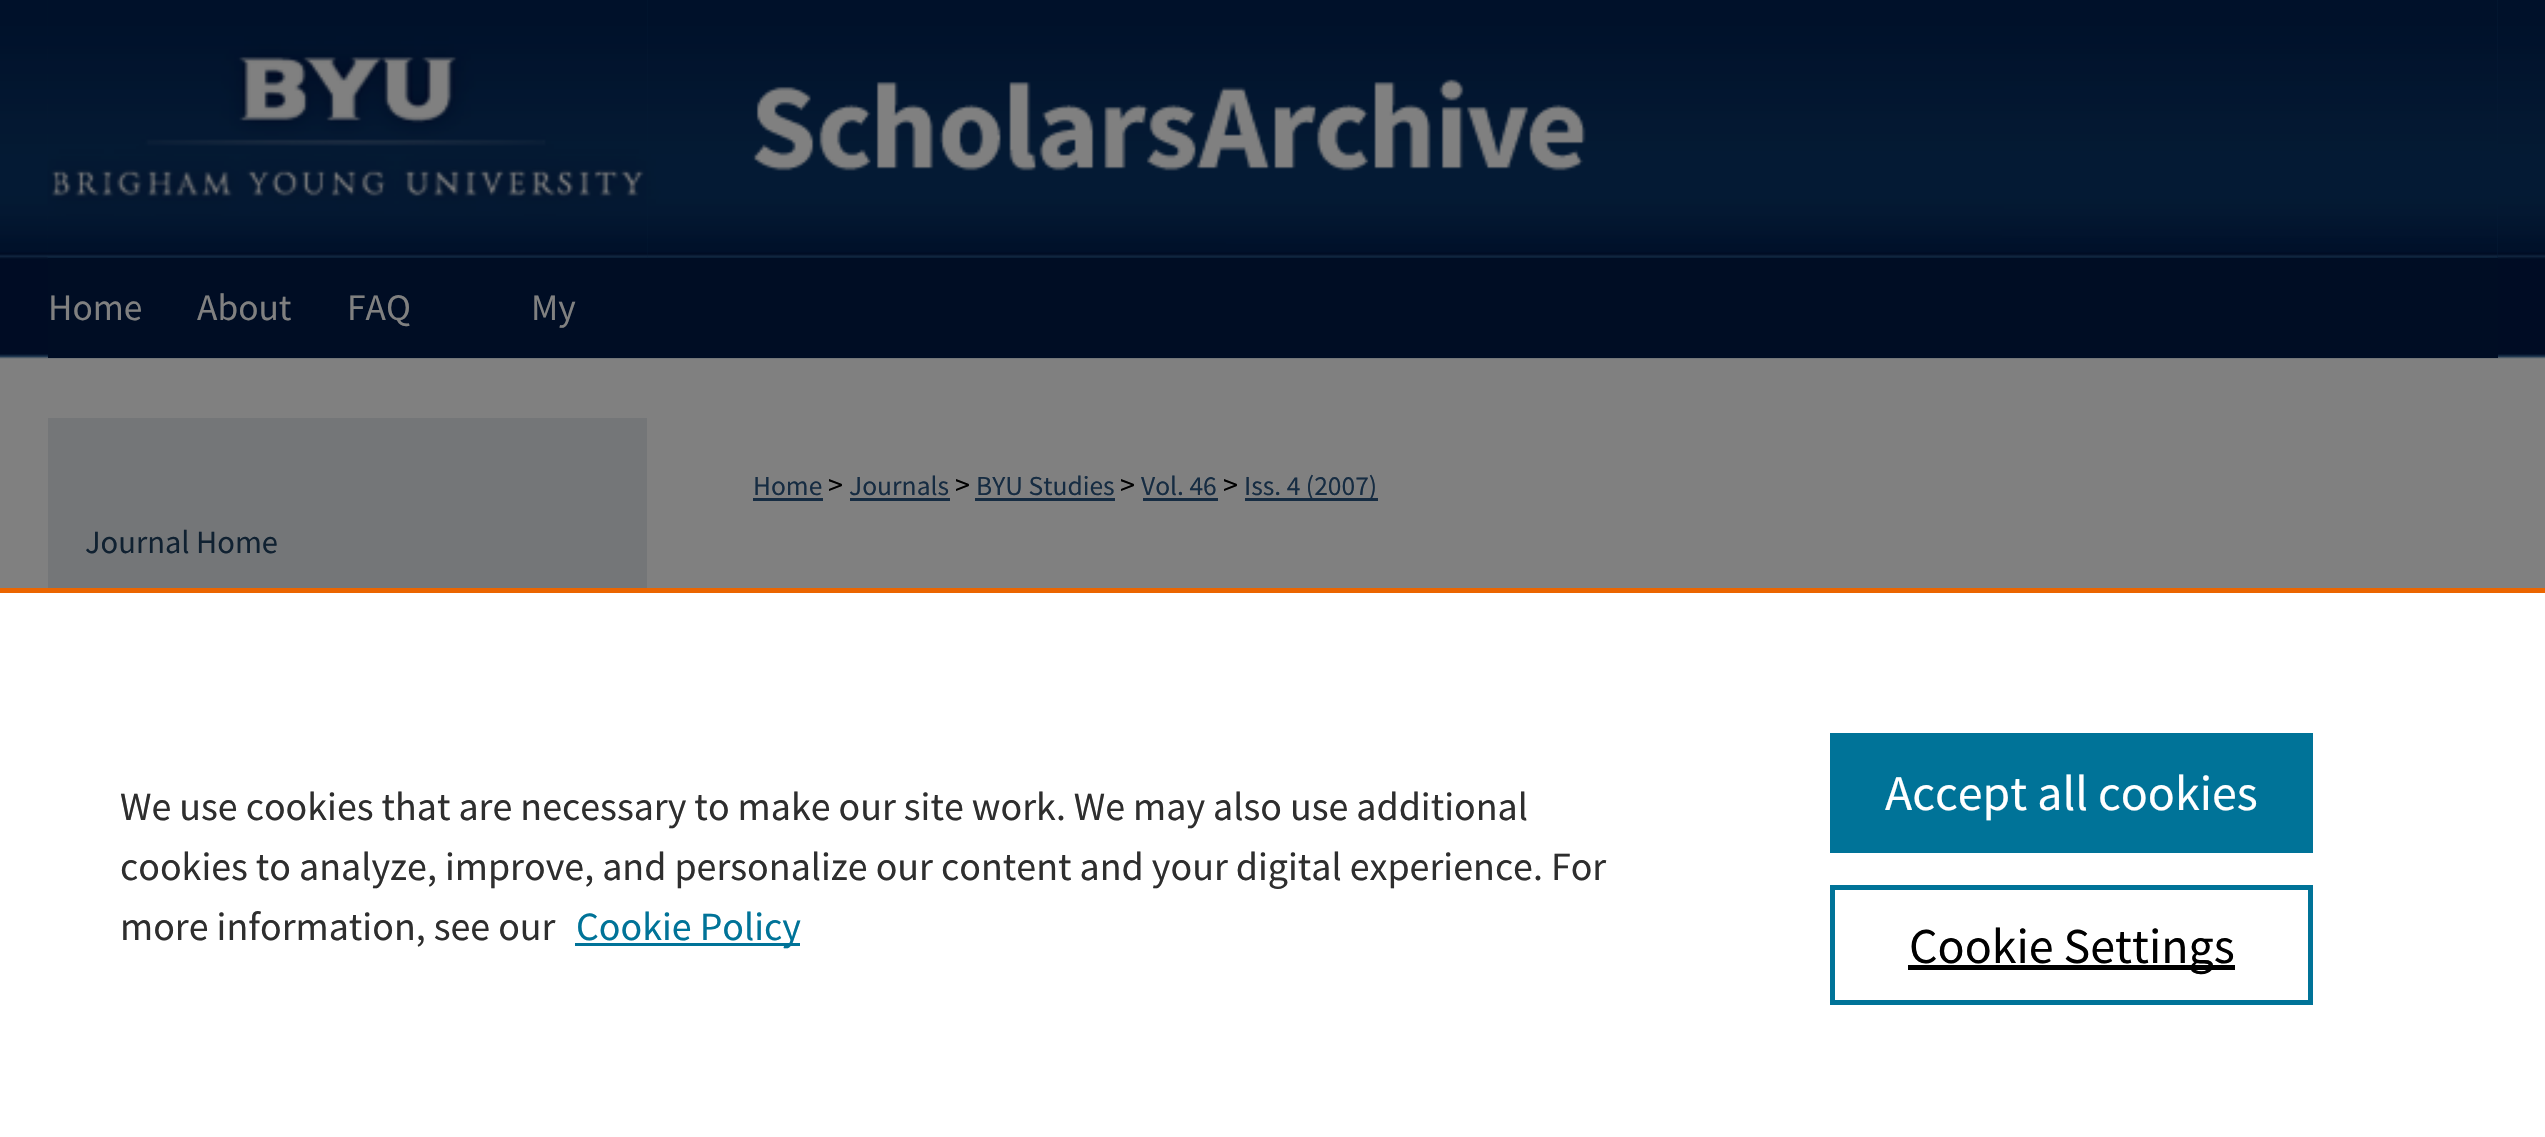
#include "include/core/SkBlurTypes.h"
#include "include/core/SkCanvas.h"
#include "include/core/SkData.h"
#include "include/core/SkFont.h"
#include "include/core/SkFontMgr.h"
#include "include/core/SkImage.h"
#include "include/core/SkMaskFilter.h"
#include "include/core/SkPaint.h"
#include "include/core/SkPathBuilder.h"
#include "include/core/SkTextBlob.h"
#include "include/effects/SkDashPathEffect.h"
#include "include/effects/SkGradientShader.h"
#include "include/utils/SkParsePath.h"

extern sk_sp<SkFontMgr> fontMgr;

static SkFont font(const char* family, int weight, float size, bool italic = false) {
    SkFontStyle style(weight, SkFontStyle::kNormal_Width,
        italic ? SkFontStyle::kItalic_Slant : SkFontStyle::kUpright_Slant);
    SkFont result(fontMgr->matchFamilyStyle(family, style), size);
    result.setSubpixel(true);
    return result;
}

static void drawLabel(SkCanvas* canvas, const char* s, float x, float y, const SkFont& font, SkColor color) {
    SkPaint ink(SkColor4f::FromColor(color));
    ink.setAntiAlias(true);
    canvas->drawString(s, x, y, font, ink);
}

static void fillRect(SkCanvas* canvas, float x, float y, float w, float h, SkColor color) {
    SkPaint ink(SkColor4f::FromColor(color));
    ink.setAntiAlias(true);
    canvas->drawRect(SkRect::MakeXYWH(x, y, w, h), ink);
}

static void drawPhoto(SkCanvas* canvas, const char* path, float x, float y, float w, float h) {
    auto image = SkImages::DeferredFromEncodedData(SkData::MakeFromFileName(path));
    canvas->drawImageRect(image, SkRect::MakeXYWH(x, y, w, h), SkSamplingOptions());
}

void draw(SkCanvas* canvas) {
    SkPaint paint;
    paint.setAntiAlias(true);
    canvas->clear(0xFF808080);
    drawPhoto(canvas, "assets/img1.png", 0, 0, 2545, 359);
    fillRect(canvas, 48, 0, 2450, 258, 0xFF041A33);
    drawPhoto(canvas, "assets/img3.png", 647, 0, 1851, 258);
    drawPhoto(canvas, "assets/img2.png", 47, 0, 601, 258);
    fillRect(canvas, 48, 258, 2450, 100, 0xFF000D24);
    SkFont font1 = font("Source Sans Pro", 400, 37.5f);
    drawLabel(canvas, "Home", 48, 320, font1, 0xFF808080);
    drawLabel(canvas, "About", 197, 320, font1, 0xFF808080);
    drawLabel(canvas, "FAQ", 347, 320, font1, 0xFF808080);
    drawLabel(canvas, "My", 531, 320, font1, 0xFF808080);
    fillRect(canvas, 48, 418, 599, 170, 0xFF747678);
    SkFont font2 = font("Source Sans Pro", 400, 27.5f);
    drawLabel(canvas, "Home", 753, 495, font2, 0xFF162C42);
    fillRect(canvas, 753, 498, 70, 3, 0xFF162C42);
    SkFont font3 = font("Source Sans Pro", 400, 30);
    drawLabel(canvas, ">", 828, 495, font3, 0xFF000000);
    drawLabel(canvas, "Journals", 849, 495, font2, 0xFF162C42);
    fillRect(canvas, 850, 498, 100, 3, 0xFF162C42);
    drawLabel(canvas, ">", 955, 495, font3, 0xFF000000);
    drawLabel(canvas, "BYU Studies", 976, 495, font2, 0xFF162C42);
    fillRect(canvas, 975, 498, 140, 3, 0xFF162C42);
    drawLabel(canvas, ">", 1120, 495, font3, 0xFF000000);
    drawLabel(canvas, "Vol. 46", 1141, 495, font2, 0xFF162C42);
    fillRect(canvas, 1143, 498, 75, 3, 0xFF162C42);
    drawLabel(canvas, ">", 1223, 495, font3, 0xFF000000);
    fillRect(canvas, 1245, 498, 133, 3, 0xFF162C42);
    drawLabel(canvas, "Iss. 4 (2007)", 1244, 495, font2, 0xFF162C42);
    SkFont font4 = font("Source Sans Pro", 400, 32.5f);
    drawLabel(canvas, "Journal Home", 85, 553, font4, 0xFF102131);
    fillRect(canvas, 0, 593, 2545, 544, 0xFFFFFFFF);
    fillRect(canvas, 0, 588, 2545, 5, 0xFFEB6500);
    SkFont font5 = font("Source Sans Pro", 400, 40);
    drawLabel(canvas, "We use cookies that are necessary to make our site work. We may also use additional", 120, 820, font5, 0xFF2E2E2E);
    drawLabel(canvas, "cookies to analyze, improve, and personalize our content and your digital experience. For", 120, 880, font5, 0xFF2E2E2E);
    drawLabel(canvas, "more information, see our", 120, 940, font5, 0xFF2E2E2E);
    fillRect(canvas, 575, 943, 225, 3, 0xFF007398);
    drawLabel(canvas, "Cookie Policy", 576, 940, font5, 0xFF007398);
    fillRect(canvas, 1830, 733, 483, 120, 0xFF007398);
    SkFont font6 = font("Source Sans Pro", 400, 50);
    drawLabel(canvas, "Accept all cookies", 1885, 810, font6, 0xFFFFFFFF);
    paint.setStroke(true);
    paint.setStrokeWidth(5);
    paint.setColor(0xFF007398);
    canvas->drawRect(SkRect::MakeXYWH(1832.5f, 887.5f, 478, 115), paint);
    fillRect(canvas, 1908, 965, 327, 5, 0xFF000000);
    drawLabel(canvas, "Cookie Settings", 1909, 963, font6, 0xFF000000);
}
